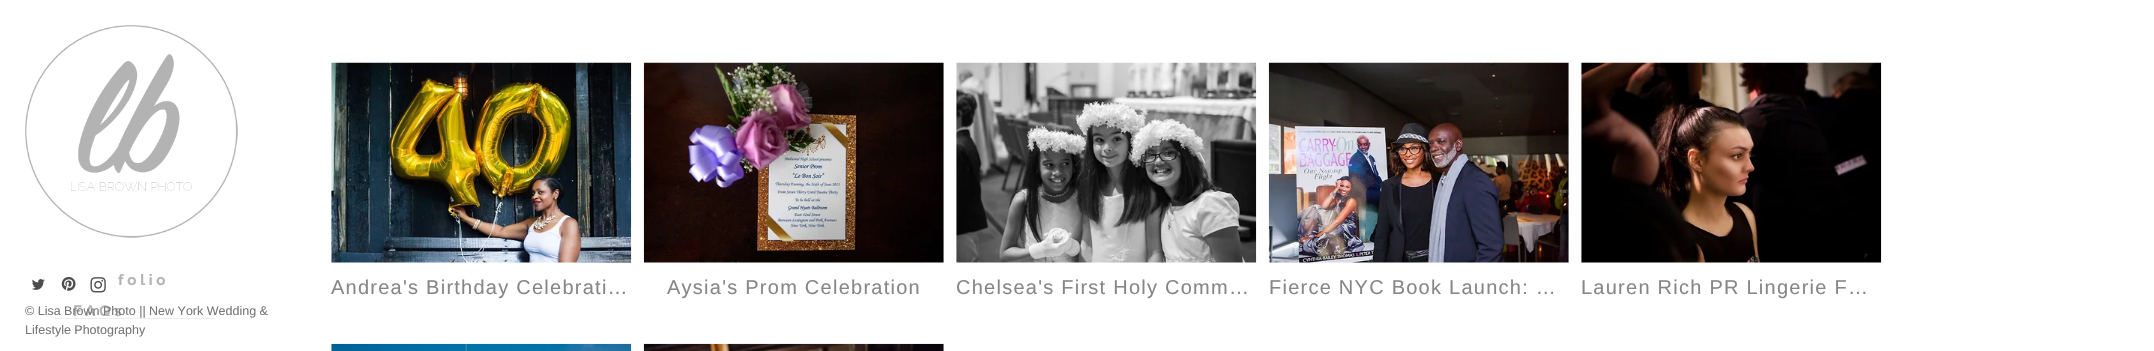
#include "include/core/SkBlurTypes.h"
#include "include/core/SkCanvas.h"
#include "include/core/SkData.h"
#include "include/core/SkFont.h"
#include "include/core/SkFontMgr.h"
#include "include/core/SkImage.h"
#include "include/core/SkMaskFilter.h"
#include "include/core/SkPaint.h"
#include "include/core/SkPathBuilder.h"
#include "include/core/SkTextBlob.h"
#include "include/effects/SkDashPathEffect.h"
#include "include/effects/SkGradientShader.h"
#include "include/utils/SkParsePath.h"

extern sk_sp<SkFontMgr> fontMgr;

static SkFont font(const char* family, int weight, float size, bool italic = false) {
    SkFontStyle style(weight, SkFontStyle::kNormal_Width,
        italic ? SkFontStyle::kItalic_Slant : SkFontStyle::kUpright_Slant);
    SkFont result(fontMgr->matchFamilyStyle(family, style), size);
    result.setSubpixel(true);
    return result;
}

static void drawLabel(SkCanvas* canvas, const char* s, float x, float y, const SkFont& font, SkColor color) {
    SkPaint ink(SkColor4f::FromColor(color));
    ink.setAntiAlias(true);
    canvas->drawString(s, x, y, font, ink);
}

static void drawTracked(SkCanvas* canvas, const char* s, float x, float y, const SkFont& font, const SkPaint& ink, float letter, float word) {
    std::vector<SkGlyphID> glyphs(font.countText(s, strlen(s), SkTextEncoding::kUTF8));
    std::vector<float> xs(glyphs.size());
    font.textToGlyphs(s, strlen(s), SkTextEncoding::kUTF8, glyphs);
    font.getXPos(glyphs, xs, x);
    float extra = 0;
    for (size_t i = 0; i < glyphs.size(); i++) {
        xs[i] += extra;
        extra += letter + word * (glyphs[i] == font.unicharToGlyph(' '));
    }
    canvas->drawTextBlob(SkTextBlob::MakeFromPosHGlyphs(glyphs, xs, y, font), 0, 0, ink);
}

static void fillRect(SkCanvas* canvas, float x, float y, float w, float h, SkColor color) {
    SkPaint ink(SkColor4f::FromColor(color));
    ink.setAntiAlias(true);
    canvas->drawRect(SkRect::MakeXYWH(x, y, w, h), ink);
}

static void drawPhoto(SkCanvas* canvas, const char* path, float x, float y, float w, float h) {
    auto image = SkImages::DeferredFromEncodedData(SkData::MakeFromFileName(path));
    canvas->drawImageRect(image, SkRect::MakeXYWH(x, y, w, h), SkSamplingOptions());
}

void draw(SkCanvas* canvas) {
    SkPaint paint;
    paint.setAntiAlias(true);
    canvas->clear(0xFFFFFFFF);
    drawPhoto(canvas, "assets/img1.png", 25, 25, 213, 213);
    fillRect(canvas, 55, 318, 160, 1, 0xFFEDEDED);
    SkFont font1 = font("Raleway", 700, 15);
    paint.setColor(0xFFB3B3B3);
    drawTracked(canvas, "folio", 118, 285, font1, paint, 3.75f, 0);
    drawTracked(canvas, "FAQs", 73, 316, font1, paint, 3.75f, 0);
    drawPhoto(canvas, "assets/img2.png", 331, 62, 301, 201);
    SkFont font2 = font("Liberation Sans", 400, 20);
    paint.setColor(0xFF878787);
    drawTracked(canvas, "Andrea's Birthday Celebrati…", 331, 294, font2, paint, 1.25f, 0);
    drawPhoto(canvas, "assets/img3.png", 643, 62, 301, 201);
    drawTracked(canvas, "Aysia's Prom Celebration", 667, 294, font2, paint, 1.25f, 0);
    drawPhoto(canvas, "assets/img4.png", 956, 62, 301, 201);
    drawTracked(canvas, "Chelsea's First Holy Comm…", 956, 294, font2, paint, 1.25f, 0);
    drawPhoto(canvas, "assets/img5.png", 1268, 62, 301, 201);
    drawTracked(canvas, "Fierce NYC Book Launch: …", 1269, 294, font2, paint, 1.25f, 0);
    drawPhoto(canvas, "assets/img6.png", 1581, 62, 301, 201);
    drawTracked(canvas, "Lauren Rich PR Lingerie F…", 1581, 294, font2, paint, 1.25f, 0);
    drawPhoto(canvas, "assets/img7.png", 331, 343, 301, 8);
    drawPhoto(canvas, "assets/img8.png", 643, 343, 301, 8);
    drawPhoto(canvas, "assets/img9.png", 32, 279, 13, 11);
    drawPhoto(canvas, "assets/img10.png", 61, 276, 15, 15);
    drawPhoto(canvas, "assets/img11.png", 90, 277, 16, 16);
    SkFont font3 = font("Liberation Sans", 400, 12.5f);
    drawLabel(canvas, "© Lisa Brown Photo || New York Wedding &", 25, 315, font3, 0xFF777777);
    drawLabel(canvas, "Lifestyle Photography", 25, 334, font3, 0xFF777777);
}
